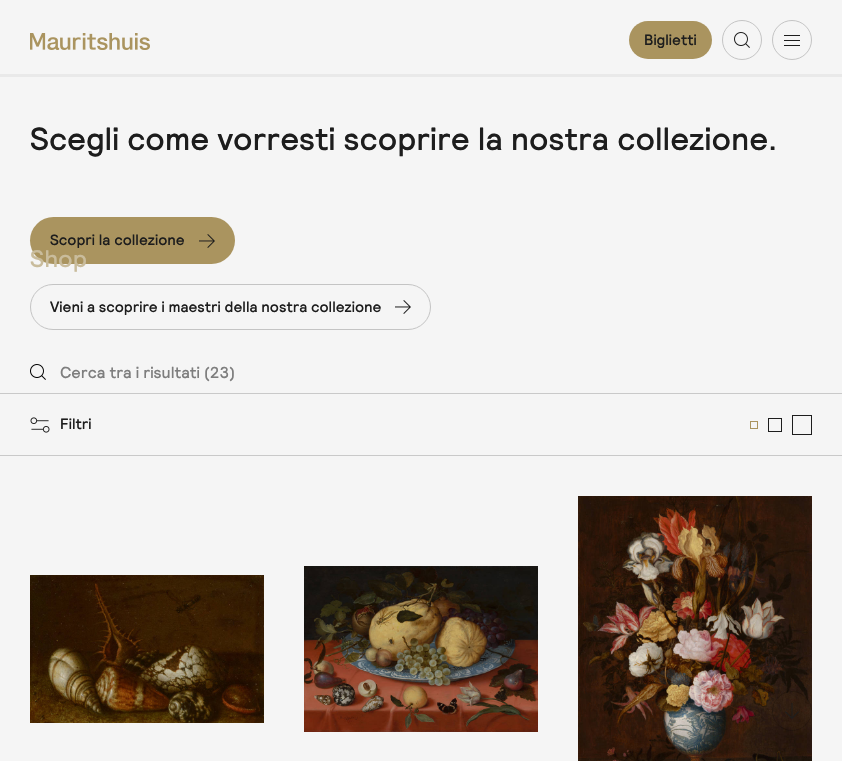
#include "include/core/SkBlurTypes.h"
#include "include/core/SkCanvas.h"
#include "include/core/SkData.h"
#include "include/core/SkFont.h"
#include "include/core/SkFontMgr.h"
#include "include/core/SkImage.h"
#include "include/core/SkMaskFilter.h"
#include "include/core/SkPaint.h"
#include "include/core/SkPathBuilder.h"
#include "include/core/SkTextBlob.h"
#include "include/effects/SkDashPathEffect.h"
#include "include/effects/SkGradientShader.h"
#include "include/utils/SkParsePath.h"

extern sk_sp<SkFontMgr> fontMgr;

static SkFont font(const char* family, int weight, float size, bool italic = false) {
    SkFontStyle style(weight, SkFontStyle::kNormal_Width,
        italic ? SkFontStyle::kItalic_Slant : SkFontStyle::kUpright_Slant);
    SkFont result(fontMgr->matchFamilyStyle(family, style), size);
    result.setSubpixel(true);
    return result;
}

static void drawLabel(SkCanvas* canvas, const char* s, float x, float y, const SkFont& font, SkColor color) {
    SkPaint ink(SkColor4f::FromColor(color));
    ink.setAntiAlias(true);
    canvas->drawString(s, x, y, font, ink);
}

static void fillRect(SkCanvas* canvas, float x, float y, float w, float h, SkColor color) {
    SkPaint ink(SkColor4f::FromColor(color));
    ink.setAntiAlias(true);
    canvas->drawRect(SkRect::MakeXYWH(x, y, w, h), ink);
}

static void fillRRect(SkCanvas* canvas, float x, float y, float w, float h, float radius, SkColor color) {
    SkPaint ink(SkColor4f::FromColor(color));
    ink.setAntiAlias(true);
    canvas->drawRoundRect(SkRect::MakeXYWH(x, y, w, h), radius, radius, ink);
}

static void drawPhoto(SkCanvas* canvas, const char* path, float x, float y, float w, float h) {
    auto image = SkImages::DeferredFromEncodedData(SkData::MakeFromFileName(path));
    canvas->drawImageRect(image, SkRect::MakeXYWH(x, y, w, h), SkSamplingOptions());
}

void draw(SkCanvas* canvas) {
    SkPaint paint;
    paint.setAntiAlias(true);
    canvas->clear(0xFFF5F5F5);
    drawPhoto(canvas, "assets/img1.png", 30, 33, 120, 17);
    fillRRect(canvas, 629, 21, 83, 38, 19, 0xFFAA945F);
    SkFont font1 = font("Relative", 500, 14.95f);
    drawLabel(canvas, "Biglietti", 644, 45, font1, 0xFF1D1D1D);
    paint.setStroke(true);
    paint.setStrokeWidth(1);
    paint.setColor(0xFFC4C4C4);
    canvas->drawCircle(742, 40, 19.5f, paint);
    drawPhoto(canvas, "assets/img2.png", 734, 32, 16, 16);
    canvas->drawCircle(792, 40, 19.5f, paint);
    drawPhoto(canvas, "assets/img3.png", 784, 35, 16, 11);
    fillRRect(canvas, 30, 217, 205, 47, 23.5f, 0xFFAA945F);
    SkFont font2 = font("Relative", 500, 24);
    drawLabel(canvas, "Shop", 30, 267, font2, 0xFFC9BC9C);
    SkFont font3 = font("Relative", 500, 32);
    drawLabel(canvas, "Scegli come vorresti scoprire la nostra collezione.", 30, 150, font3, 0xFF1D1D1D);
    drawLabel(canvas, "Scopri la collezione", 50, 245, font1, 0xFF1D1D1D);
    drawPhoto(canvas, "assets/img4.png", 199, 234, 16, 14);
    canvas->drawRoundRect(SkRect::MakeXYWH(30.5f, 284.5f, 400, 45), 22.5f, 22.5f, paint);
    drawLabel(canvas, "Vieni a scoprire i maestri della nostra collezione", 50, 312, font1, 0xFF1D1D1D);
    drawPhoto(canvas, "assets/img5.png", 395, 300, 16, 14);
    fillRect(canvas, 0, 74, 842, 3, 0xFFE9E9E9);
    fillRect(canvas, 0, 455, 842, 1, 0xFFC9C9C9);
    fillRect(canvas, 0, 393, 842, 1, 0xFFC9C9C9);
    drawPhoto(canvas, "assets/img6.png", 30, 364, 16, 16);
    SkFont font4 = font("Relative", 500, 16);
    drawLabel(canvas, "Cerca tra i risultati (23)", 60, 378, font4, 0xFF7E7E7E);
    drawPhoto(canvas, "assets/img7.png", 30, 417, 20, 16);
    drawLabel(canvas, "Filtri", 60, 429, font1, 0xFF1D1D1D);
    paint.setColor(0xFFAA945F);
    canvas->drawRect(SkRect::MakeXYWH(750.5f, 421.5f, 7, 7), paint);
    paint.setColor(0xFF1D1D1D);
    canvas->drawRect(SkRect::MakeXYWH(768.5f, 418.5f, 13, 13), paint);
    canvas->drawRect(SkRect::MakeXYWH(792.5f, 415.5f, 19, 19), paint);
    drawPhoto(canvas, "assets/img8.png", 30, 575, 234, 148);
    drawPhoto(canvas, "assets/img9.png", 304, 566, 234, 166);
    drawPhoto(canvas, "assets/img10.png", 578, 496, 234, 265);
    paint.setColor(0x33000000);
    canvas->drawCircle(792, 711, 19.5f, paint);
    drawPhoto(canvas, "assets/img11.png", 785, 703, 14, 16);
}
